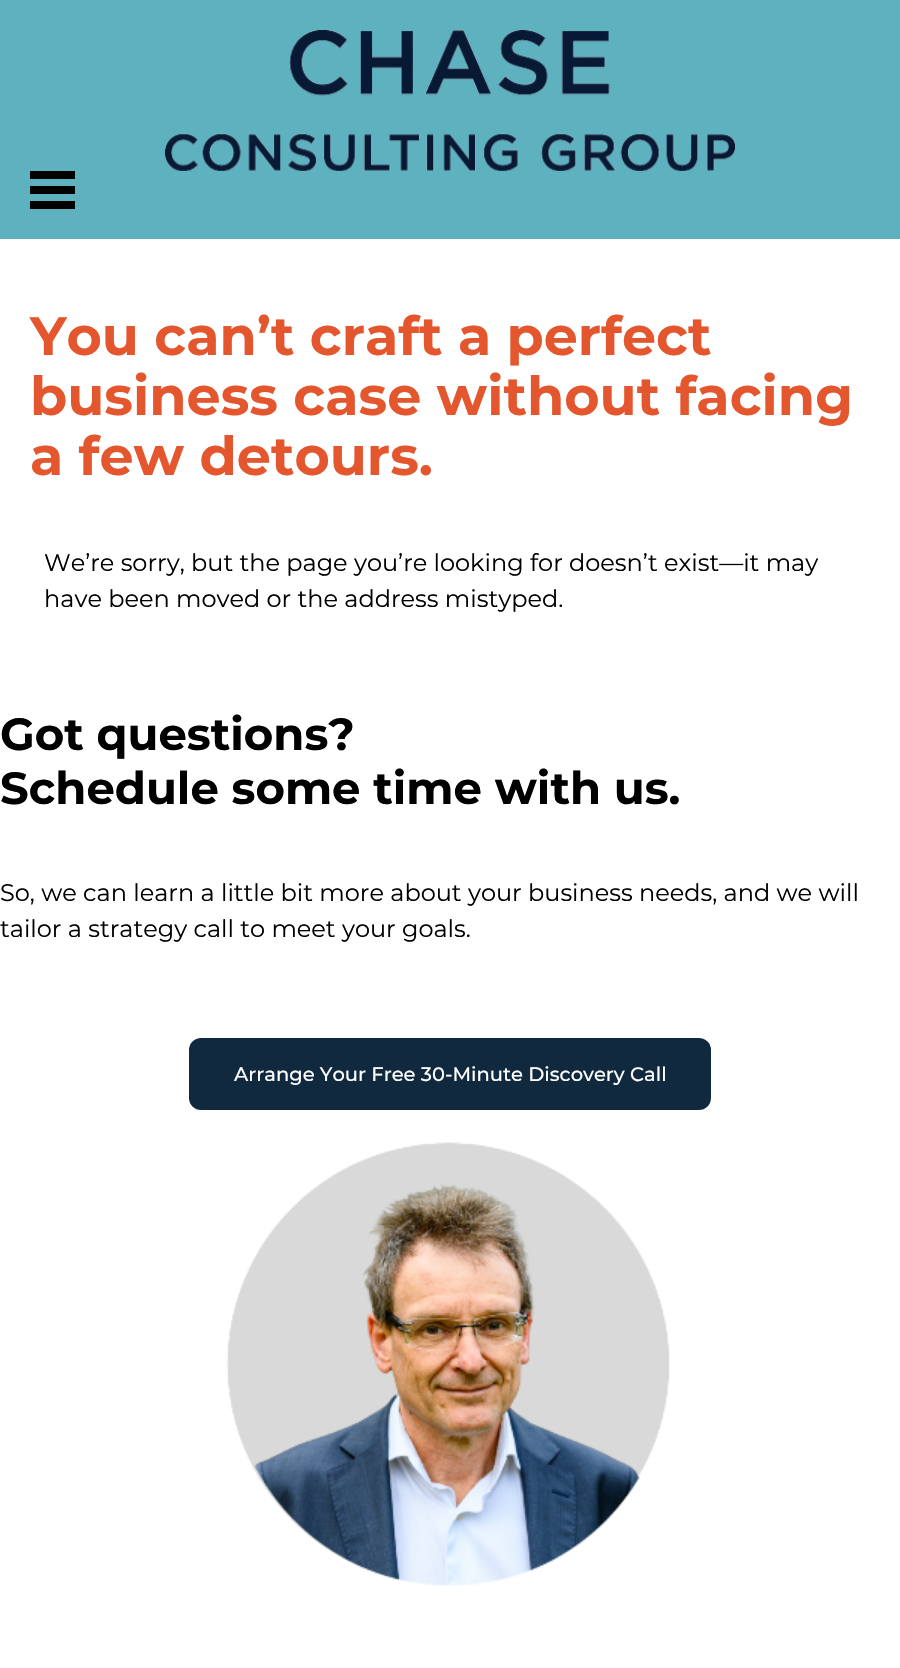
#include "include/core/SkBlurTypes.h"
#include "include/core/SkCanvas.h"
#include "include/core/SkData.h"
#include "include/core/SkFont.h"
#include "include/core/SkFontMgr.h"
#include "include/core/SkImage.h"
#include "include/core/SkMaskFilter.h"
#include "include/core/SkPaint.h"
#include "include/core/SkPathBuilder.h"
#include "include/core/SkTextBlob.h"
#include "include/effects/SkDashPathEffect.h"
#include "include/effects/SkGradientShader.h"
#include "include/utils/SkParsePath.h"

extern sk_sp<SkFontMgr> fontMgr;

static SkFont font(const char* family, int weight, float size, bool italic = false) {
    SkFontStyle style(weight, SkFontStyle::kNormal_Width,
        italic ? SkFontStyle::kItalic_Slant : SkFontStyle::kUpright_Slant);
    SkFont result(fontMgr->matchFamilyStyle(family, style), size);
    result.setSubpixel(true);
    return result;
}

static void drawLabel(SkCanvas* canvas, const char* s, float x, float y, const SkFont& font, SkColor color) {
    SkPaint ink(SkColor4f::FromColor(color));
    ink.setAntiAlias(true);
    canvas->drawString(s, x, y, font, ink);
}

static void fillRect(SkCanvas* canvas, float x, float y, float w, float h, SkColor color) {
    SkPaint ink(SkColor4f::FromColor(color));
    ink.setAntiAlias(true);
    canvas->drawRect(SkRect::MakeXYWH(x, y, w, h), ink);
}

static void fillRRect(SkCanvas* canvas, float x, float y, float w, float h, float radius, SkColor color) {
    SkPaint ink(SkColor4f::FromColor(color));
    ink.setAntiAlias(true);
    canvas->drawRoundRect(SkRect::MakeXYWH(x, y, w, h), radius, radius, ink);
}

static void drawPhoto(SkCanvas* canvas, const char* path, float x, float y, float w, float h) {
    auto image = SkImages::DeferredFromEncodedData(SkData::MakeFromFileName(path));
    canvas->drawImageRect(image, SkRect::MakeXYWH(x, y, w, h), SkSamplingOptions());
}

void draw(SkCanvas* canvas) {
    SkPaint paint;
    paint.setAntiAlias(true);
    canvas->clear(0xFFFFFFFF);
    fillRect(canvas, 0, 0, 900, 239, 0xFF5EB1BF);
    drawPhoto(canvas, "assets/img1.png", 165, 30, 570, 141);
    fillRect(canvas, 30, 186, 45, 8, 0xFF000000);
    fillRect(canvas, 30, 171, 45, 8, 0xFF000000);
    fillRect(canvas, 30, 201, 45, 8, 0xFF000000);
    SkFont font1 = font("Montserrat", 700, 54);
    drawLabel(canvas, "You can’t craft a perfect", 30, 355, font1, 0xFFE4572E);
    drawLabel(canvas, "business case without facing", 30, 415, font1, 0xFFE4572E);
    drawLabel(canvas, "a few detours.", 30, 475, font1, 0xFFE4572E);
    SkFont font2 = font("Montserrat", 400, 24);
    drawLabel(canvas, "We’re sorry, but the page you’re looking for doesn’t exist—it may", 44, 571, font2, 0xFF000000);
    drawLabel(canvas, "have been moved or the address mistyped.", 44, 607, font2, 0xFF000000);
    SkFont font3 = font("Montserrat", 700, 45);
    drawLabel(canvas, "Got questions?", 0, 750, font3, 0xFF000000);
    drawLabel(canvas, "Schedule some time with us.", 0, 804, font3, 0xFF000000);
    drawLabel(canvas, "So, we can learn a little bit more about your business needs, and we will", 0, 901, font2, 0xFF000000);
    drawLabel(canvas, "tailor a strategy call to meet your goals.", 0, 937, font2, 0xFF000000);
    fillRRect(canvas, 189, 1038, 522, 72, 12, 0xFF10293F);
    SkFont font4 = font("Montserrat", 500, 19.5f);
    drawLabel(canvas, "Arrange Your Free 30-Minute Discovery Call", 234, 1081, font4, 0xFFFFFFFF);
    drawPhoto(canvas, "assets/img2.png", 226, 1142, 444, 444);
}
